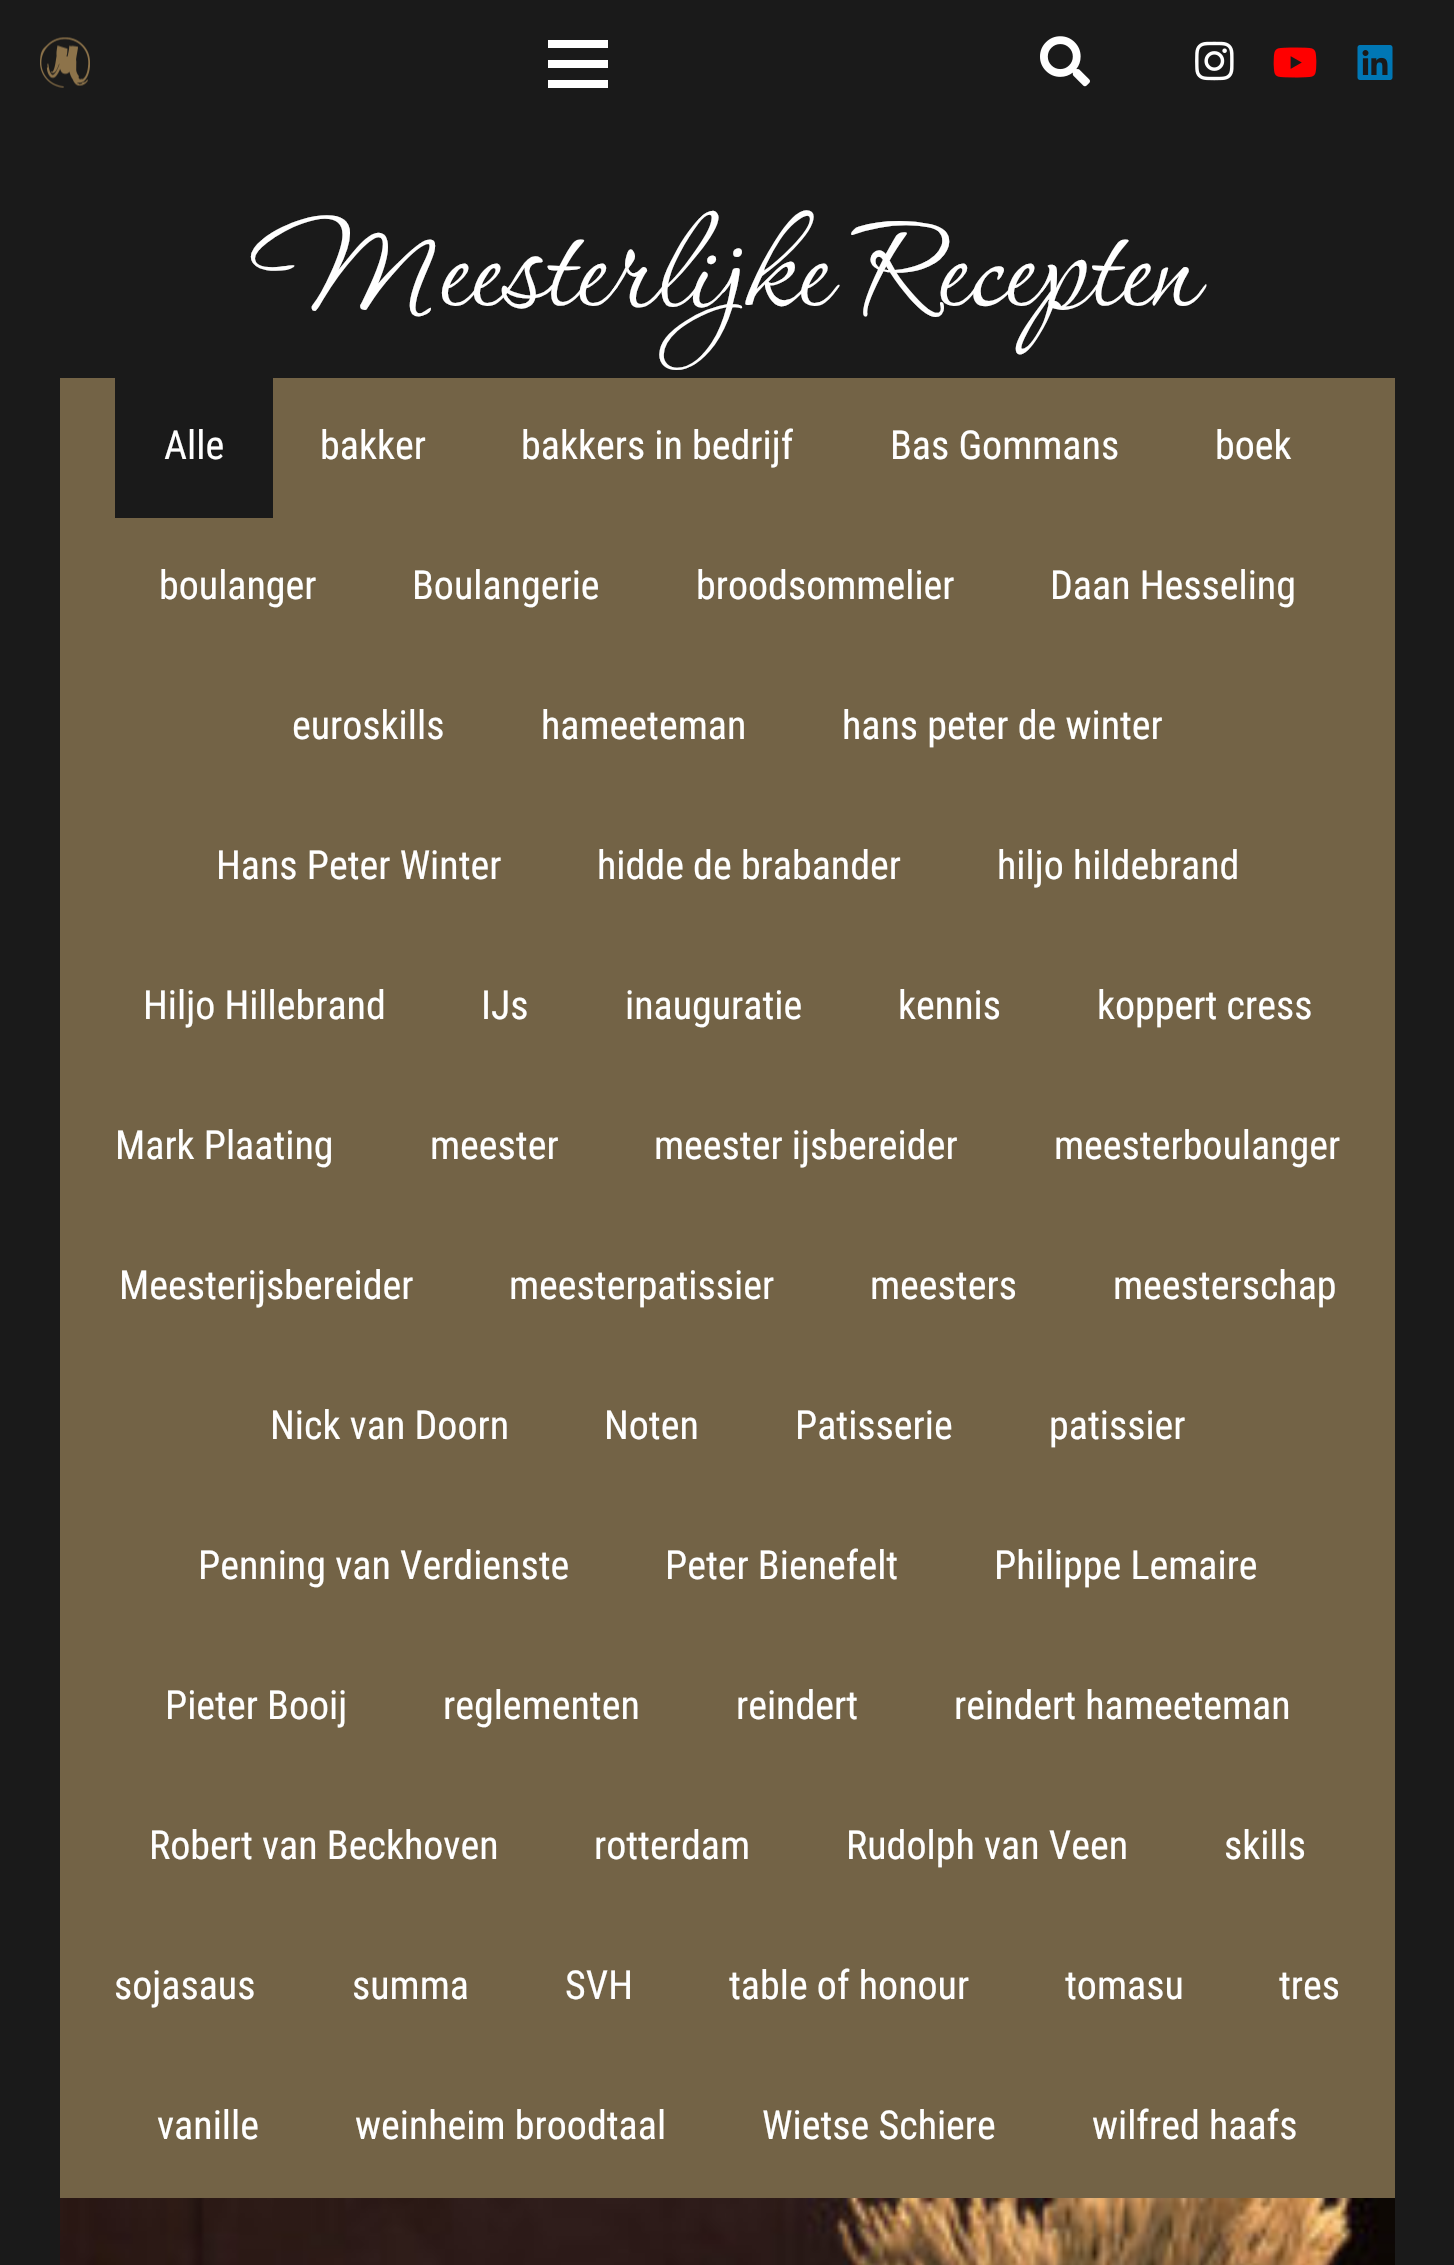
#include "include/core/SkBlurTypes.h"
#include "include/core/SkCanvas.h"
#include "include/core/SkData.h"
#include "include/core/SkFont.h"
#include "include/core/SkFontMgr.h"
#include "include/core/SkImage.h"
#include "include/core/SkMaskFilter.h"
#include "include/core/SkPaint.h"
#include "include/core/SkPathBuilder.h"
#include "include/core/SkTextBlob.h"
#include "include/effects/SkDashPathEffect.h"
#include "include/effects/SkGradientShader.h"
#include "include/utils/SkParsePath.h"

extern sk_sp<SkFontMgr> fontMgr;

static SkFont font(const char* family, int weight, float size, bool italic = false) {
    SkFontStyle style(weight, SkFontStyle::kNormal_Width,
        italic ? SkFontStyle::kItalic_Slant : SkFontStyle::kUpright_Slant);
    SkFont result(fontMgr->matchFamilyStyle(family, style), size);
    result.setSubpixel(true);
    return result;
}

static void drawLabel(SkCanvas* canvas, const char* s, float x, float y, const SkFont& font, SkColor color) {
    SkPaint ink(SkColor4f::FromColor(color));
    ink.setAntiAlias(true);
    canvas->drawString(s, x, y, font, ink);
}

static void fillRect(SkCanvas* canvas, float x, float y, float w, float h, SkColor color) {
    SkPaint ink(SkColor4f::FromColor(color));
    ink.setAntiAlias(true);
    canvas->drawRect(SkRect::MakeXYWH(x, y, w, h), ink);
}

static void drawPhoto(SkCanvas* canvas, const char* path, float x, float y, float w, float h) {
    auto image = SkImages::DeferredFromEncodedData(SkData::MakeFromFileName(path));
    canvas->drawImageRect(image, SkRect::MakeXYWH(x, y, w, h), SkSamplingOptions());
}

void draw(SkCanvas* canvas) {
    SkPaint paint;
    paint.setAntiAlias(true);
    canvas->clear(0xFF1A1A1A);
    drawPhoto(canvas, "assets/img1.png", 40, 37, 50, 51);
    fillRect(canvas, 548, 60, 60, 8, 0xFFFFFFFF);
    fillRect(canvas, 548, 40, 60, 8, 0xFFFFFFFF);
    fillRect(canvas, 548, 80, 60, 8, 0xFFFFFFFF);
    drawPhoto(canvas, "assets/img2.png", 1040, 36, 50, 51);
    drawPhoto(canvas, "assets/img3.png", 1195, 41, 39, 40);
    drawPhoto(canvas, "assets/img4.png", 1273, 47, 44, 31);
    drawPhoto(canvas, "assets/img5.png", 1357, 45, 36, 35);
    SkFont font1 = font("Corinthia", 400, 160);
    drawLabel(canvas, "Meesterlijke Recepten", 259, 305, font1, 0xFFFFFFFF);
    fillRect(canvas, 60, 378, 1335, 1820, 0xFF736346);
    fillRect(canvas, 115, 378, 158, 140, 0xFF1A1A1A);
    SkFont font2 = font("Roboto Condensed", 400, 40);
    drawLabel(canvas, "Alle", 164, 459, font2, 0xFFFFFFFF);
    drawLabel(canvas, "bakker", 320, 459, font2, 0xFFFFFFFF);
    drawLabel(canvas, "bakkers in bedrijf", 521, 459, font2, 0xFFFFFFFF);
    drawLabel(canvas, "Bas Gommans", 890, 459, font2, 0xFFFFFFFF);
    drawLabel(canvas, "boek", 1215, 459, font2, 0xFFFFFFFF);
    drawLabel(canvas, "boulanger", 159, 599, font2, 0xFFFFFFFF);
    drawLabel(canvas, "Boulangerie", 412, 599, font2, 0xFFFFFFFF);
    drawLabel(canvas, "broodsommelier", 696, 599, font2, 0xFFFFFFFF);
    drawLabel(canvas, "Daan Hesseling", 1050, 599, font2, 0xFFFFFFFF);
    drawLabel(canvas, "euroskills", 292, 739, font2, 0xFFFFFFFF);
    drawLabel(canvas, "hameeteman", 541, 739, font2, 0xFFFFFFFF);
    drawLabel(canvas, "hans peter de winter", 842, 739, font2, 0xFFFFFFFF);
    drawLabel(canvas, "Hans Peter Winter", 216, 879, font2, 0xFFFFFFFF);
    drawLabel(canvas, "hidde de brabander", 597, 879, font2, 0xFFFFFFFF);
    drawLabel(canvas, "hiljo hildebrand", 997, 879, font2, 0xFFFFFFFF);
    drawLabel(canvas, "Hiljo Hillebrand", 143, 1019, font2, 0xFFFFFFFF);
    drawLabel(canvas, "IJs", 481, 1019, font2, 0xFFFFFFFF);
    drawLabel(canvas, "inauguratie", 625, 1019, font2, 0xFFFFFFFF);
    drawLabel(canvas, "kennis", 898, 1019, font2, 0xFFFFFFFF);
    drawLabel(canvas, "koppert cress", 1097, 1019, font2, 0xFFFFFFFF);
    drawLabel(canvas, "Mark Plaating", 115, 1159, font2, 0xFFFFFFFF);
    drawLabel(canvas, "meester", 430, 1159, font2, 0xFFFFFFFF);
    drawLabel(canvas, "meester ijsbereider", 654, 1159, font2, 0xFFFFFFFF);
    drawLabel(canvas, "meesterboulanger", 1054, 1159, font2, 0xFFFFFFFF);
    drawLabel(canvas, "Meesterijsbereider", 119, 1299, font2, 0xFFFFFFFF);
    drawLabel(canvas, "meesterpatissier", 509, 1299, font2, 0xFFFFFFFF);
    drawLabel(canvas, "meesters", 870, 1299, font2, 0xFFFFFFFF);
    drawLabel(canvas, "meesterschap", 1113, 1299, font2, 0xFFFFFFFF);
    drawLabel(canvas, "Nick van Doorn", 270, 1439, font2, 0xFFFFFFFF);
    drawLabel(canvas, "Noten", 604, 1439, font2, 0xFFFFFFFF);
    drawLabel(canvas, "Patisserie", 795, 1439, font2, 0xFFFFFFFF);
    drawLabel(canvas, "patissier", 1049, 1439, font2, 0xFFFFFFFF);
    drawLabel(canvas, "Penning van Verdienste", 198, 1579, font2, 0xFFFFFFFF);
    drawLabel(canvas, "Peter Bienefelt", 665, 1579, font2, 0xFFFFFFFF);
    drawLabel(canvas, "Philippe Lemaire", 994, 1579, font2, 0xFFFFFFFF);
    drawLabel(canvas, "Pieter Booij", 165, 1719, font2, 0xFFFFFFFF);
    drawLabel(canvas, "reglementen", 443, 1719, font2, 0xFFFFFFFF);
    drawLabel(canvas, "reindert", 736, 1719, font2, 0xFFFFFFFF);
    drawLabel(canvas, "reindert hameeteman", 954, 1719, font2, 0xFFFFFFFF);
    drawLabel(canvas, "Robert van Beckhoven", 149, 1859, font2, 0xFFFFFFFF);
    drawLabel(canvas, "rotterdam", 594, 1859, font2, 0xFFFFFFFF);
    drawLabel(canvas, "Rudolph van Veen", 846, 1859, font2, 0xFFFFFFFF);
    drawLabel(canvas, "skills", 1224, 1859, font2, 0xFFFFFFFF);
    drawLabel(canvas, "sojasaus", 114, 1999, font2, 0xFFFFFFFF);
    drawLabel(canvas, "summa", 352, 1999, font2, 0xFFFFFFFF);
    drawLabel(canvas, "SVH", 565, 1999, font2, 0xFFFFFFFF);
    drawLabel(canvas, "table of honour", 729, 1999, font2, 0xFFFFFFFF);
    drawLabel(canvas, "tomasu", 1065, 1999, font2, 0xFFFFFFFF);
    drawLabel(canvas, "tres", 1279, 1999, font2, 0xFFFFFFFF);
    drawLabel(canvas, "vanille", 157, 2139, font2, 0xFFFFFFFF);
    drawLabel(canvas, "weinheim broodtaal", 355, 2139, font2, 0xFFFFFFFF);
    drawLabel(canvas, "Wietse Schiere", 762, 2139, font2, 0xFFFFFFFF);
    drawLabel(canvas, "wilfred haafs", 1092, 2139, font2, 0xFFFFFFFF);
    drawPhoto(canvas, "assets/img6.png", 60, 2198, 1335, 67);
}
